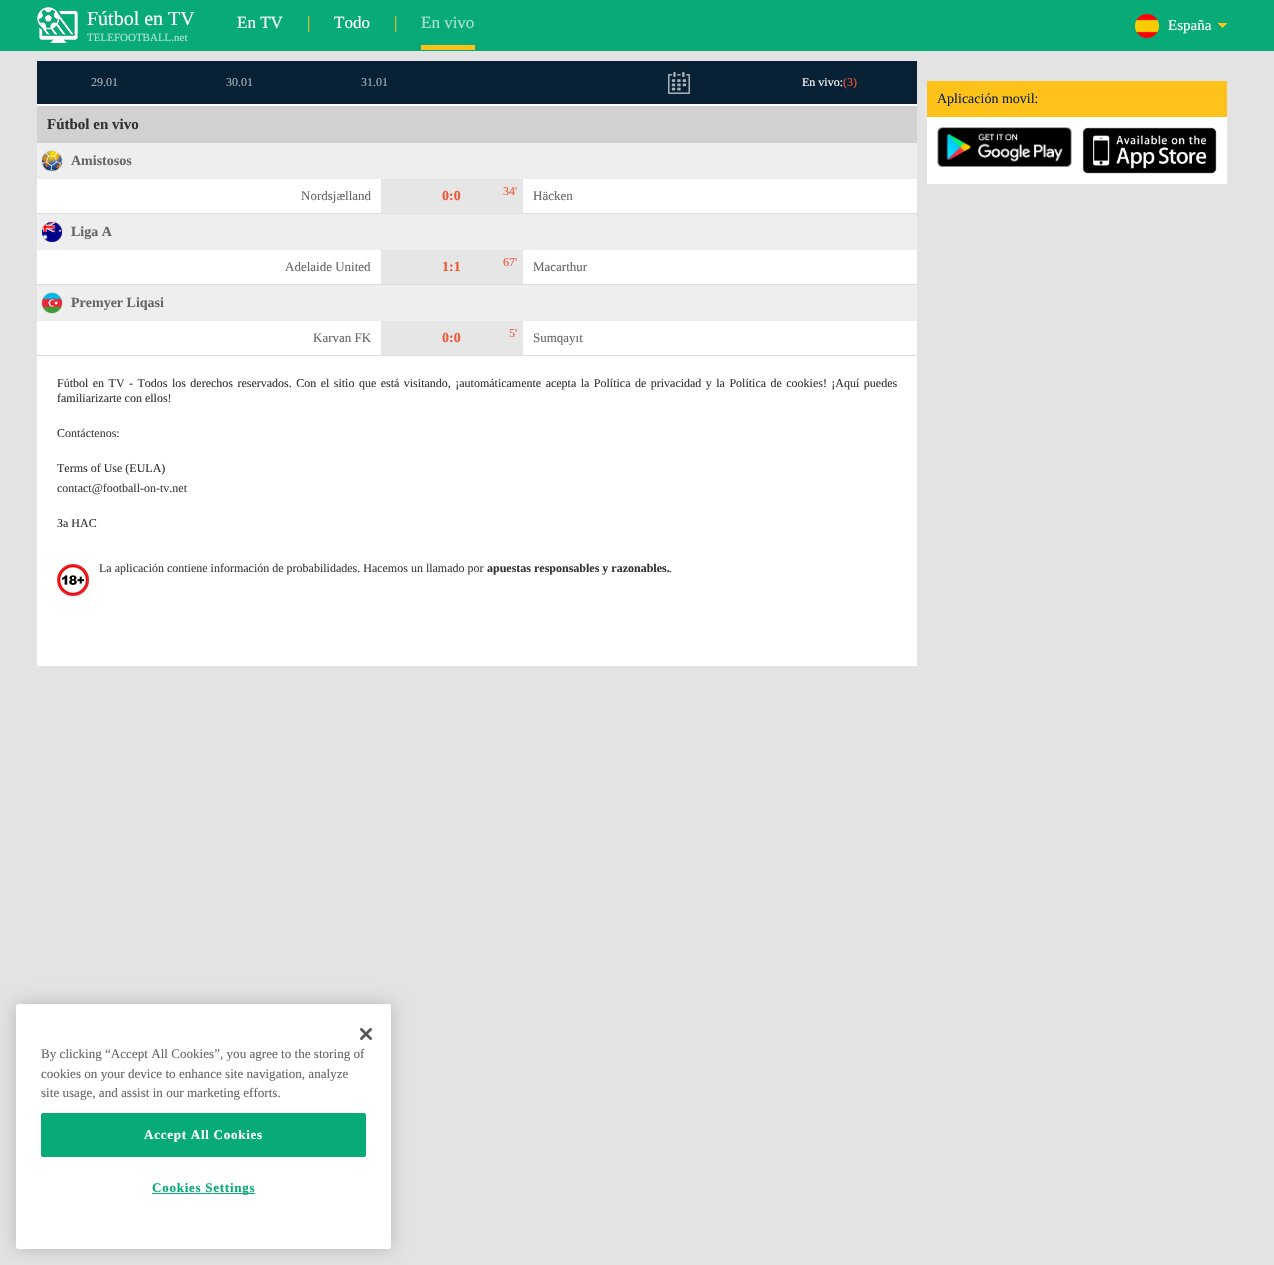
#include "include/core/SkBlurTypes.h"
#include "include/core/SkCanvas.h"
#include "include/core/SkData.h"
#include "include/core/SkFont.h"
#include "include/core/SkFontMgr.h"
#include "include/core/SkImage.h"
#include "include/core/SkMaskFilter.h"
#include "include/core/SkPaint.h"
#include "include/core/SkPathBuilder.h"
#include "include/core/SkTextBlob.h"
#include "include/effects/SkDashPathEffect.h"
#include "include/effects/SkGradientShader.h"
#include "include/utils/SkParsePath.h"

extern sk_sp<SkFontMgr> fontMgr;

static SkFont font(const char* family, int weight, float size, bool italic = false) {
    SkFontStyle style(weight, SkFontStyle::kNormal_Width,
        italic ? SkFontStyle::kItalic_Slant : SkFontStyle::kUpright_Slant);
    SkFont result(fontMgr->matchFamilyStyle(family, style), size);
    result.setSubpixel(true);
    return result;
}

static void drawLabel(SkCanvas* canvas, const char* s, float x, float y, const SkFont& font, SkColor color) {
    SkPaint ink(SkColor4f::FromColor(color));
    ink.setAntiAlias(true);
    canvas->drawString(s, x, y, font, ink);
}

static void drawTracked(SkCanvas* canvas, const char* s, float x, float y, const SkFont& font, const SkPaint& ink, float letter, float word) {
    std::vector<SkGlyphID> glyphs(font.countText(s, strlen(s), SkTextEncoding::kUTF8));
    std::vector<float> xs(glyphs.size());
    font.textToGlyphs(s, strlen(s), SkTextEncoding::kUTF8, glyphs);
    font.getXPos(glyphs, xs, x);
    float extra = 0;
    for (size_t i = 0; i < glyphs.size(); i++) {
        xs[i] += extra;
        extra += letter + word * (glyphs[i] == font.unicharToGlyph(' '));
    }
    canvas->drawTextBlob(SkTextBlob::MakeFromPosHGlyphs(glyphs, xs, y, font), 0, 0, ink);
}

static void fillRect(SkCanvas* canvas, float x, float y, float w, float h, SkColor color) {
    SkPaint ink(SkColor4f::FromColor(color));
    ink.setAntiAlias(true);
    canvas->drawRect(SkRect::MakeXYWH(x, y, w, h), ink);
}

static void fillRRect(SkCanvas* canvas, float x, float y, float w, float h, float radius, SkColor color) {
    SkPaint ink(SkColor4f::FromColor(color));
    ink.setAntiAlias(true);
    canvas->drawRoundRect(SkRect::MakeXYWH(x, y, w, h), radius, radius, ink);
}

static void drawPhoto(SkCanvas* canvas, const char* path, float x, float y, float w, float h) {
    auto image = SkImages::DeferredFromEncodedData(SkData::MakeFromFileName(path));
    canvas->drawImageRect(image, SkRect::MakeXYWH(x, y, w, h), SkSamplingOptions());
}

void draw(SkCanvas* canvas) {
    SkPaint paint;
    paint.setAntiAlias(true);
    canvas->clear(0xFFE3E3E3);
    fillRect(canvas, 0, 0, 1274, 51, 0xFF08AA78);
    drawPhoto(canvas, "assets/img1.png", 37, 7, 41, 36);
    SkFont font1 = font("Liberation Serif", 400, 20);
    drawLabel(canvas, "Fútbol en TV", 87, 25, font1, 0xFFFFFFFF);
    SkFont font2 = font("Liberation Serif", 400, 11);
    drawLabel(canvas, "TELEFOOTBALL.net", 87, 41, font2, 0xFFA9E1D0);
    SkFont font3 = font("Liberation Serif", 400, 17);
    drawLabel(canvas, "En TV", 237, 28, font3, 0xFFFFFFFF);
    drawLabel(canvas, "|", 307, 28, font3, 0xFFFFC21A);
    drawLabel(canvas, "Todo", 334, 28, font3, 0xFFFFFFFF);
    drawLabel(canvas, "|", 394, 28, font3, 0xFFFFC21A);
    fillRect(canvas, 421, 45, 54, 5, 0xFFFFC21A);
    drawLabel(canvas, "En vivo", 421, 28, font3, 0xFFA9E1D0);
    drawPhoto(canvas, "assets/img2.png", 1135, 14, 24, 24);
    drawPhoto(canvas, "assets/img3.png", 1218, 23, 9, 5);
    SkFont font4 = font("Liberation Serif", 400, 15);
    drawLabel(canvas, "España", 1168, 30, font4, 0xFFFFFFFF);
    fillRect(canvas, 37, 104, 880, 562, 0xFFFFFFFF);
    fillRect(canvas, 37, 61, 880, 43, 0xFF092134);
    SkFont font5 = font("Liberation Serif", 400, 12);
    drawLabel(canvas, "29.01", 91, 86, font5, 0xFFA9B1B8);
    drawLabel(canvas, "30.01", 226, 86, font5, 0xFFA9B1B8);
    drawLabel(canvas, "31.01", 361, 86, font5, 0xFFA9B1B8);
    drawPhoto(canvas, "assets/img4.png", 668, 72, 22, 22);
    drawLabel(canvas, "En vivo:", 802, 86, font5, 0xFFFFFFFF);
    drawLabel(canvas, "(3)", 843, 86, font5, 0xFFF25532);
    fillRect(canvas, 37, 106, 880, 37, 0xFFD1D1D1);
    SkFont font6 = font("Liberation Serif", 700, 15);
    drawLabel(canvas, "Fútbol en vivo", 47, 129, font6, 0xFF333333);
    fillRect(canvas, 37, 143, 880, 36, 0xFFEEEEEE);
    drawPhoto(canvas, "assets/img5.png", 37, 149, 26, 24);
    SkFont font7 = font("Liberation Serif", 700, 14);
    drawLabel(canvas, "Amistosos", 71, 165, font7, 0xFF666666);
    fillRect(canvas, 37, 213, 880, 1, 0xFFDDDDDD);
    SkFont font8 = font("Liberation Serif", 400, 13);
    drawLabel(canvas, "Nordsjælland", 301, 200, font8, 0xFF666666);
    fillRect(canvas, 381, 179, 142, 34, 0xFFE6E6E6);
    drawLabel(canvas, "0:0", 442, 200, font7, 0xFFF25532);
    drawLabel(canvas, "34'", 503, 195, font5, 0xFFF25532);
    drawLabel(canvas, "Häcken", 533, 200, font8, 0xFF666666);
    fillRect(canvas, 37, 214, 880, 36, 0xFFEEEEEE);
    drawPhoto(canvas, "assets/img6.png", 38, 220, 25, 24);
    drawLabel(canvas, "Liga A", 71, 236, font7, 0xFF666666);
    fillRect(canvas, 37, 284, 880, 1, 0xFFDDDDDD);
    drawLabel(canvas, "Adelaide United", 285, 271, font8, 0xFF666666);
    fillRect(canvas, 381, 250, 142, 34, 0xFFE6E6E6);
    drawLabel(canvas, "1:1", 442, 271, font7, 0xFFF25532);
    drawLabel(canvas, "67'", 503, 266, font5, 0xFFF25532);
    drawLabel(canvas, "Macarthur", 533, 271, font8, 0xFF666666);
    fillRect(canvas, 37, 285, 880, 36, 0xFFEEEEEE);
    drawPhoto(canvas, "assets/img7.png", 38, 291, 25, 24);
    drawLabel(canvas, "Premyer Liqasi", 71, 307, font7, 0xFF666666);
    fillRect(canvas, 37, 355, 880, 1, 0xFFDDDDDD);
    drawLabel(canvas, "Karvan FK", 313, 342, font8, 0xFF666666);
    fillRect(canvas, 381, 321, 142, 34, 0xFFE6E6E6);
    drawLabel(canvas, "0:0", 442, 342, font7, 0xFFF25532);
    drawLabel(canvas, "5'", 509, 337, font5, 0xFFF25532);
    drawLabel(canvas, "Sumqayıt", 533, 342, font8, 0xFF666666);
    paint.setColor(0xFF333333);
    drawTracked(canvas, "Fútbol en TV - Todos los derechos reservados. Con el sitio que está visitando, ¡automáticamente acepta la Política de privacidad y la Política de cookies! ¡Aquí puedes", 57, 387, font5, paint, 0, 1.45f);
    drawLabel(canvas, "familiarizarte con ellos!", 57, 402, font5, 0xFF333333);
    drawLabel(canvas, "Contáctenos:", 57, 437, font5, 0xFF3D3D3D);
    drawLabel(canvas, "Terms of Use (EULA)", 57, 472, font5, 0xFF333333);
    drawLabel(canvas, "contact@football-on-tv.net", 57, 492, font5, 0xFF3D3D3D);
    drawLabel(canvas, "За НАС", 57, 527, font5, 0xFF333333);
    drawPhoto(canvas, "assets/img8.png", 57, 564, 32, 32);
    drawLabel(canvas, "La aplicación contiene información de probabilidades. Hacemos un llamado por", 99, 572, font5, 0xFF3D3D3D);
    SkFont font9 = font("Liberation Serif", 700, 12);
    drawLabel(canvas, "apuestas responsables y razonables.", 487, 572, font9, 0xFF333333);
    drawLabel(canvas, ".", 669, 572, font5, 0xFF3D3D3D);
    fillRect(canvas, 927, 81, 300, 36, 0xFFFFC21A);
    SkFont font10 = font("Liberation Serif", 400, 14);
    drawLabel(canvas, "Aplicación movil:", 937, 103, font10, 0xFF092134);
    fillRect(canvas, 927, 117, 300, 67, 0xFFFFFFFF);
    drawPhoto(canvas, "assets/img9.png", 937, 127, 135, 40);
    drawPhoto(canvas, "assets/img10.png", 1082, 127, 135, 47);
    paint.setColor(0x33000000);
    paint.setMaskFilter(SkMaskFilter::MakeBlur(kNormal_SkBlurStyle, 9));
    canvas->drawRoundRect(SkRect::MakeXYWH(16, 1004, 375, 245), 2.5f, 2.5f, paint);
    paint.setMaskFilter(nullptr);
    fillRRect(canvas, 16, 1004, 375, 245, 2.5f, 0xFFFFFFFF);
    drawPhoto(canvas, "assets/img11.png", 360, 1028, 12, 12);
    SkFont font11 = font("Liberation Serif", 400, 13.1f);
    drawLabel(canvas, "By clicking “Accept All Cookies”, you agree to the storing of", 41, 1058, font11, 0xFF666666);
    drawLabel(canvas, "cookies on your device to enhance site navigation, analyze", 41, 1078, font11, 0xFF666666);
    drawLabel(canvas, "site usage, and assist in our marketing efforts.", 41, 1097, font11, 0xFF666666);
    paint.setColor(0xFF08AA78);
    canvas->drawRoundRect(SkRect::MakeXYWH(41.5f, 1113.5f, 324, 43), 1.5f, 1.5f, paint);
    paint.setStroke(true);
    paint.setStrokeWidth(1);
    canvas->drawRoundRect(SkRect::MakeXYWH(41.5f, 1113.5f, 324, 43), 1.5f, 1.5f, paint);
    SkFont font12 = font("Liberation Serif", 700, 13.1f);
    paint.setStroke(false);
    paint.setColor(0xFFFFFFFF);
    drawTracked(canvas, "Accept All Cookies", 144, 1139, font12, paint, 0.7f, 0);
    fillRect(canvas, 152, 1193, 103, 1, 0xFF08AA78);
    paint.setColor(0xFF08AA78);
    drawTracked(canvas, "Cookies Settings", 152, 1192, font12, paint, 0.7f, 0);
}
